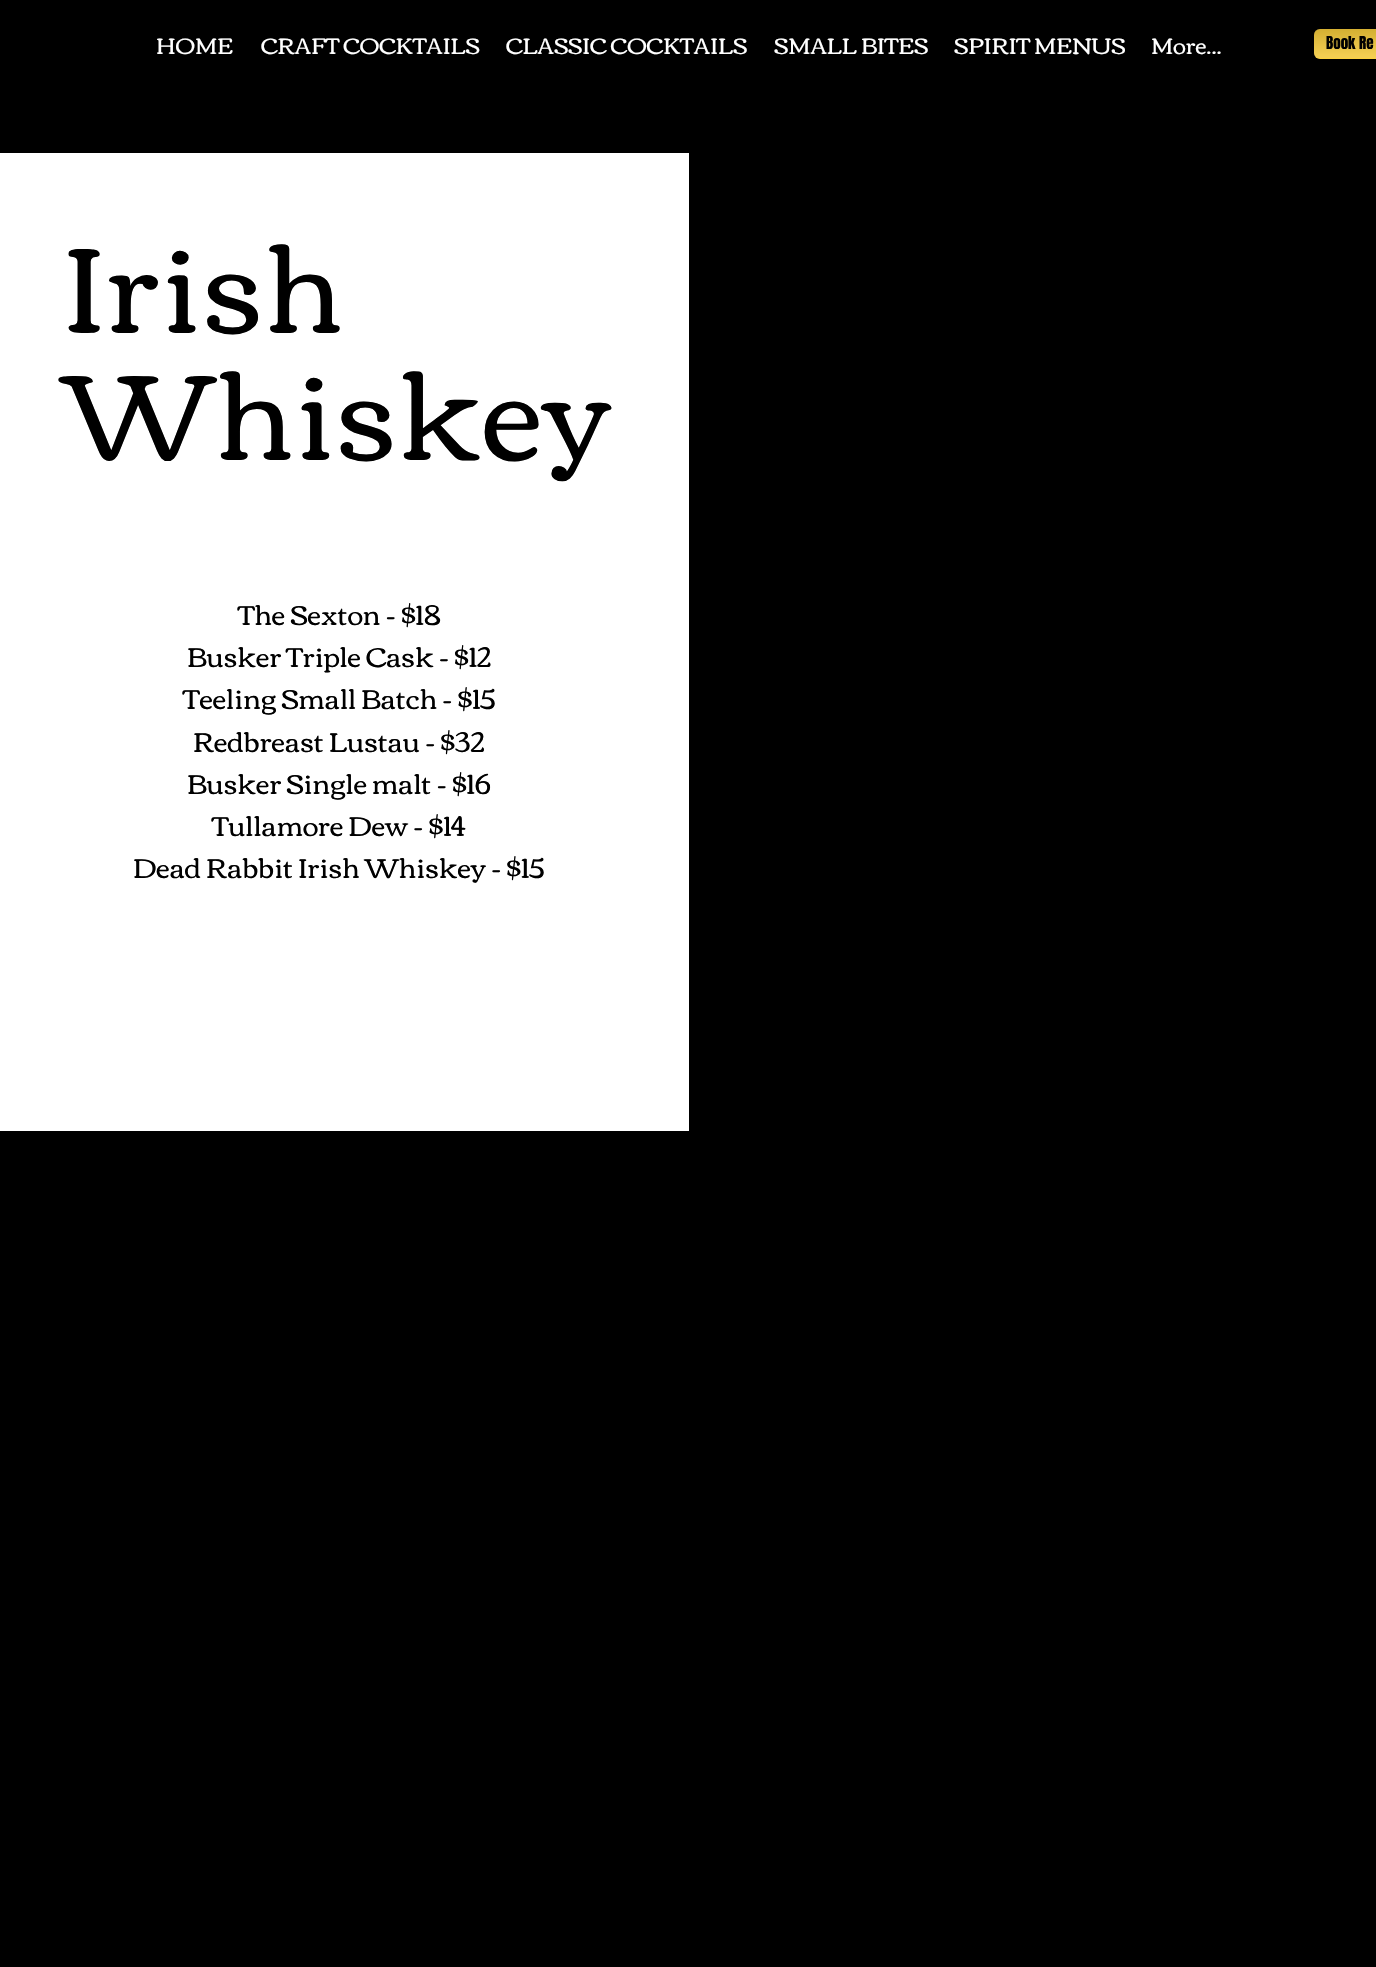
#include "include/core/SkBlurTypes.h"
#include "include/core/SkCanvas.h"
#include "include/core/SkData.h"
#include "include/core/SkFont.h"
#include "include/core/SkFontMgr.h"
#include "include/core/SkImage.h"
#include "include/core/SkMaskFilter.h"
#include "include/core/SkPaint.h"
#include "include/core/SkPathBuilder.h"
#include "include/core/SkTextBlob.h"
#include "include/effects/SkDashPathEffect.h"
#include "include/effects/SkGradientShader.h"
#include "include/utils/SkParsePath.h"

extern sk_sp<SkFontMgr> fontMgr;

static SkFont font(const char* family, int weight, float size, bool italic = false) {
    SkFontStyle style(weight, SkFontStyle::kNormal_Width,
        italic ? SkFontStyle::kItalic_Slant : SkFontStyle::kUpright_Slant);
    SkFont result(fontMgr->matchFamilyStyle(family, style), size);
    result.setSubpixel(true);
    return result;
}

static void drawLabel(SkCanvas* canvas, const char* s, float x, float y, const SkFont& font, SkColor color) {
    SkPaint ink(SkColor4f::FromColor(color));
    ink.setAntiAlias(true);
    canvas->drawString(s, x, y, font, ink);
}

static void drawTracked(SkCanvas* canvas, const char* s, float x, float y, const SkFont& font, const SkPaint& ink, float letter, float word) {
    std::vector<SkGlyphID> glyphs(font.countText(s, strlen(s), SkTextEncoding::kUTF8));
    std::vector<float> xs(glyphs.size());
    font.textToGlyphs(s, strlen(s), SkTextEncoding::kUTF8, glyphs);
    font.getXPos(glyphs, xs, x);
    float extra = 0;
    for (size_t i = 0; i < glyphs.size(); i++) {
        xs[i] += extra;
        extra += letter + word * (glyphs[i] == font.unicharToGlyph(' '));
    }
    canvas->drawTextBlob(SkTextBlob::MakeFromPosHGlyphs(glyphs, xs, y, font), 0, 0, ink);
}

static void fillRect(SkCanvas* canvas, float x, float y, float w, float h, SkColor color) {
    SkPaint ink(SkColor4f::FromColor(color));
    ink.setAntiAlias(true);
    canvas->drawRect(SkRect::MakeXYWH(x, y, w, h), ink);
}

static void fillRRect(SkCanvas* canvas, float x, float y, float w, float h, float radius, SkColor color) {
    SkPaint ink(SkColor4f::FromColor(color));
    ink.setAntiAlias(true);
    canvas->drawRoundRect(SkRect::MakeXYWH(x, y, w, h), radius, radius, ink);
}

static void drawPhoto(SkCanvas* canvas, const char* path, float x, float y, float w, float h) {
    auto image = SkImages::DeferredFromEncodedData(SkData::MakeFromFileName(path));
    canvas->drawImageRect(image, SkRect::MakeXYWH(x, y, w, h), SkSamplingOptions());
}

void draw(SkCanvas* canvas) {
    SkPaint paint;
    paint.setAntiAlias(true);
    canvas->clear(0xFF000000);
    SkFont font1 = font("Corben", 400, 22.5f);
    drawLabel(canvas, "HOME", 156, 54, font1, 0xFFFFFFFF);
    drawLabel(canvas, "CRAFT COCKTAILS", 261, 54, font1, 0xFFFFFFFF);
    drawLabel(canvas, "CLASSIC COCKTAILS", 506, 54, font1, 0xFFFFFFFF);
    drawLabel(canvas, "SMALL BITES", 774, 54, font1, 0xFFFFFFFF);
    drawLabel(canvas, "SPIRIT MENUS", 954, 54, font1, 0xFFFFFFFF);
    drawLabel(canvas, "More...", 1151, 54, font1, 0xFFFFFFFF);
    fillRRect(canvas, 1314, 29, 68, 30, 6, 0xFFFBCB29);
    drawPhoto(canvas, "assets/img1.png", 1314, 29, 62, 29);
    drawPhoto(canvas, "assets/img2.png", 1314, 29, 62, 30);
    SkFont font2 = font("Anton", 400, 15);
    drawLabel(canvas, "Book Re", 1326, 49, font2, 0xFF000000);
    fillRect(canvas, 0, 153, 689, 978, 0xFFFFFFFF);
    SkFont font3 = font("Corben", 400, 122.5f);
    paint.setColor(0xFF000000);
    drawTracked(canvas, "Irish", 63, 333, font3, paint, 1.25f, 0);
    drawTracked(canvas, "Whiskey", 63, 460, font3, paint, 1.25f, 0);
    SkFont font4 = font("Corben", 400, 27.5f);
    drawLabel(canvas, "The Sexton - $18", 238, 625, font4, 0xFF000000);
    drawLabel(canvas, "Busker Triple Cask - $12", 187, 667, font4, 0xFF000000);
    drawLabel(canvas, "Teeling Small Batch - $15", 183, 709, font4, 0xFF000000);
    drawLabel(canvas, "Redbreast Lustau - $32", 193, 752, font4, 0xFF000000);
    drawLabel(canvas, "Busker Single malt - $16", 187, 794, font4, 0xFF000000);
    drawLabel(canvas, "Tullamore Dew - $14", 212, 836, font4, 0xFF000000);
    drawLabel(canvas, "Dead Rabbit Irish Whiskey - $15", 133, 878, font4, 0xFF000000);
}
